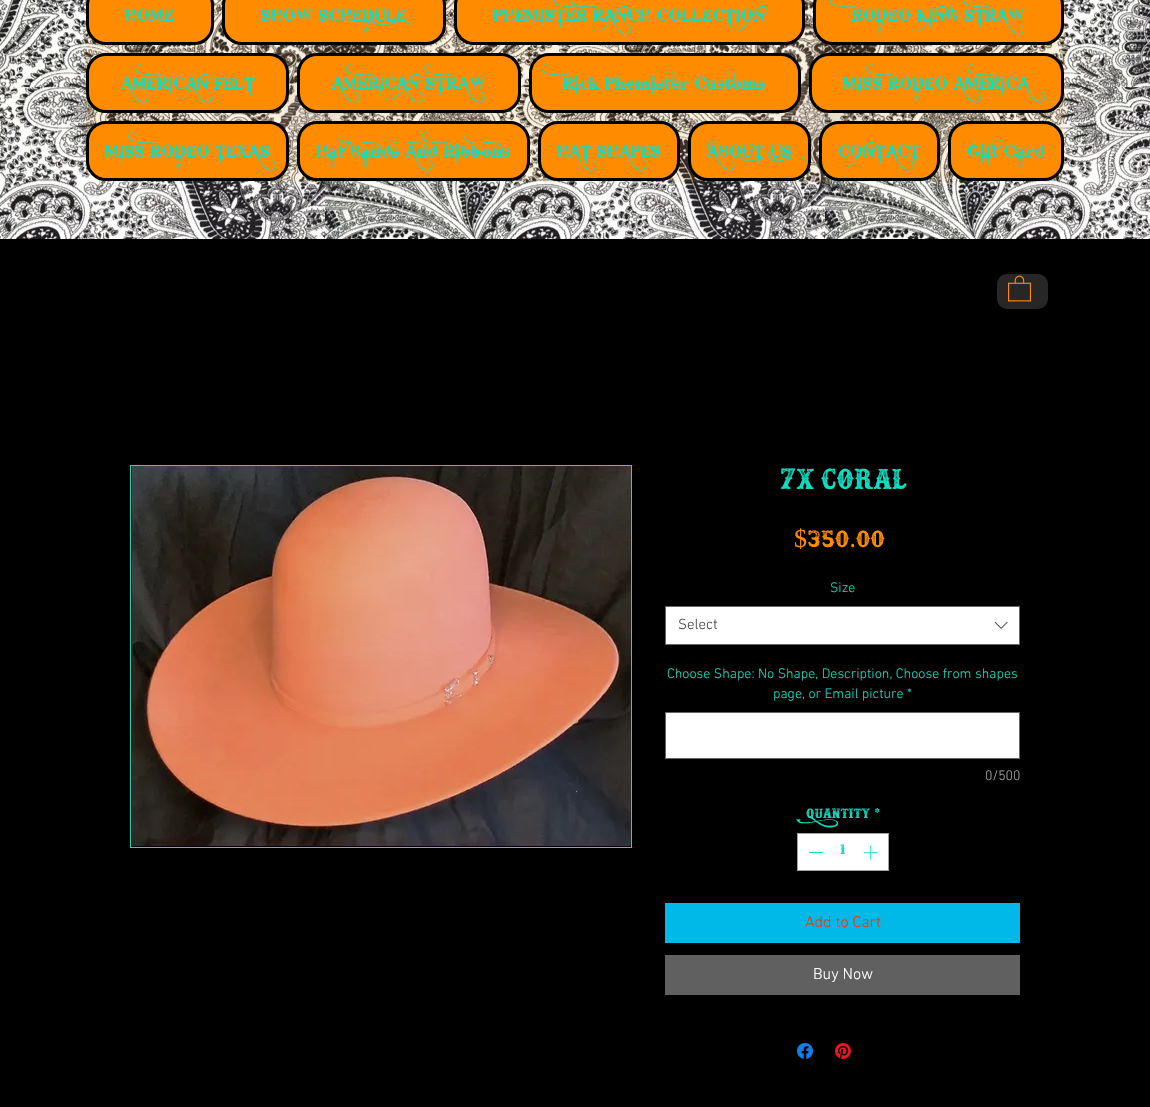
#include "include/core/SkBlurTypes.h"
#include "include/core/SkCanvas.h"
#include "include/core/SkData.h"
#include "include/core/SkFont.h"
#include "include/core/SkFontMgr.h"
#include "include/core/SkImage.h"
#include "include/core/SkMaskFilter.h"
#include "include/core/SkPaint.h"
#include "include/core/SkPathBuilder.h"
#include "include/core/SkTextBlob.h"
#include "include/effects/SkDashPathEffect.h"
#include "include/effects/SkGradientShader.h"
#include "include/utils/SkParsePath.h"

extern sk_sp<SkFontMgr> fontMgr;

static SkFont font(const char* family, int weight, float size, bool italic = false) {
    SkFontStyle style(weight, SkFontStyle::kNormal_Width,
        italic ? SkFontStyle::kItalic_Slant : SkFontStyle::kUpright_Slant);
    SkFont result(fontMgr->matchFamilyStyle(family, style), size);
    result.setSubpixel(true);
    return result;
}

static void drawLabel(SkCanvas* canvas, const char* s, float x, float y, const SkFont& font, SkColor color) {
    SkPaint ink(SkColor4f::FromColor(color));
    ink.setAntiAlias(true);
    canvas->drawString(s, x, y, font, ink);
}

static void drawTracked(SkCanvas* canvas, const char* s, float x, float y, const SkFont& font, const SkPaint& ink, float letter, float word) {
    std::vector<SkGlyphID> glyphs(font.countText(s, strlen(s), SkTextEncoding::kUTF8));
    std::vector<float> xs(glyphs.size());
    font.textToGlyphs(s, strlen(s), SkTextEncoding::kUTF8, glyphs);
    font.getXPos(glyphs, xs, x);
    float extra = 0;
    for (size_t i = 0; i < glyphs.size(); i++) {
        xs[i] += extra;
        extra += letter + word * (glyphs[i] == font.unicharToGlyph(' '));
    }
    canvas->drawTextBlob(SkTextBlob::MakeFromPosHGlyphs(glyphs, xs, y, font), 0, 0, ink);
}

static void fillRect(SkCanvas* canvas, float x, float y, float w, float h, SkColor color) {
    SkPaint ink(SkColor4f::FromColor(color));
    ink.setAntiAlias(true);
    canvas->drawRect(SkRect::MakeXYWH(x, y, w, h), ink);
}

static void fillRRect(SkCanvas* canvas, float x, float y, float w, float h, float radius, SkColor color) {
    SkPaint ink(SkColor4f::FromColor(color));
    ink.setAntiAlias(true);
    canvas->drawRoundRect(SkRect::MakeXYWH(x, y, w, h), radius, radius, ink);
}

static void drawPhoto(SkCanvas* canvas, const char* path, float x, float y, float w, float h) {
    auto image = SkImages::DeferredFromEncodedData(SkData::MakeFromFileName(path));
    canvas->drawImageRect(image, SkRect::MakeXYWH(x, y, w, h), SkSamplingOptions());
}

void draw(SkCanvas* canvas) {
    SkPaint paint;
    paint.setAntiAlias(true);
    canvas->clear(0xFF000000);
    drawPhoto(canvas, "assets/img1.png", 0, 0, 1150, 239);
    fillRRect(canvas, 85, -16, 980, 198, 20, 0x17FF8C00);
    paint.setColor(0xFFFF8C00);
    canvas->drawRoundRect(SkRect::MakeXYWH(87.5f, -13.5f, 125, 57), 18.5f, 18.5f, paint);
    paint.setStroke(true);
    paint.setStrokeWidth(3);
    paint.setColor(0xFF000000);
    canvas->drawRoundRect(SkRect::MakeXYWH(87.5f, -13.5f, 125, 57), 18.5f, 18.5f, paint);
    SkFont font1 = font("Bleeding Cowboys", 400, 17);
    paint.setStroke(false);
    paint.setColor(0xFF0DDEC2);
    drawTracked(canvas, "HOME", 125, 21, font1, paint, 0.85f, 0);
    paint.setColor(0xFFFF8C00);
    canvas->drawRoundRect(SkRect::MakeXYWH(223.5f, -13.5f, 221, 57), 18.5f, 18.5f, paint);
    paint.setStroke(true);
    paint.setColor(0xFF000000);
    canvas->drawRoundRect(SkRect::MakeXYWH(223.5f, -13.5f, 221, 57), 18.5f, 18.5f, paint);
    paint.setStroke(false);
    paint.setColor(0xFF0DDEC2);
    drawTracked(canvas, "SHOW SCHEDULE", 261, 21, font1, paint, 0.85f, 0);
    paint.setColor(0xFFFF8C00);
    canvas->drawRoundRect(SkRect::MakeXYWH(455.5f, -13.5f, 348, 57), 18.5f, 18.5f, paint);
    paint.setStroke(true);
    paint.setColor(0xFF000000);
    canvas->drawRoundRect(SkRect::MakeXYWH(455.5f, -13.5f, 348, 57), 18.5f, 18.5f, paint);
    paint.setStroke(false);
    paint.setColor(0xFF0DDEC2);
    drawTracked(canvas, "PHEMISTER RANCH COLLECTION", 493, 21, font1, paint, 0.85f, 0);
    paint.setColor(0xFFFF8C00);
    canvas->drawRoundRect(SkRect::MakeXYWH(814.5f, -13.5f, 248, 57), 18.5f, 18.5f, paint);
    paint.setStroke(true);
    paint.setColor(0xFF000000);
    canvas->drawRoundRect(SkRect::MakeXYWH(814.5f, -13.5f, 248, 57), 18.5f, 18.5f, paint);
    paint.setStroke(false);
    paint.setColor(0xFF0DDEC2);
    drawTracked(canvas, "RODEO KING STRAW", 852, 21, font1, paint, 0.85f, 0);
    paint.setColor(0xFFFF8C00);
    canvas->drawRoundRect(SkRect::MakeXYWH(87.5f, 54.5f, 200, 57), 18.5f, 18.5f, paint);
    paint.setStroke(true);
    paint.setColor(0xFF000000);
    canvas->drawRoundRect(SkRect::MakeXYWH(87.5f, 54.5f, 200, 57), 18.5f, 18.5f, paint);
    paint.setStroke(false);
    paint.setColor(0xFF0DDEC2);
    drawTracked(canvas, "AMERICAN FELT", 121, 89, font1, paint, 0.85f, 0);
    paint.setColor(0xFFFF8C00);
    canvas->drawRoundRect(SkRect::MakeXYWH(298.5f, 54.5f, 221, 57), 18.5f, 18.5f, paint);
    paint.setStroke(true);
    paint.setColor(0xFF000000);
    canvas->drawRoundRect(SkRect::MakeXYWH(298.5f, 54.5f, 221, 57), 18.5f, 18.5f, paint);
    paint.setStroke(false);
    paint.setColor(0xFF0DDEC2);
    drawTracked(canvas, "AMERICAN STRAW", 332, 89, font1, paint, 0.85f, 0);
    paint.setColor(0xFFFF8C00);
    canvas->drawRoundRect(SkRect::MakeXYWH(530.5f, 54.5f, 269, 57), 18.5f, 18.5f, paint);
    paint.setStroke(true);
    paint.setColor(0xFF000000);
    canvas->drawRoundRect(SkRect::MakeXYWH(530.5f, 54.5f, 269, 57), 18.5f, 18.5f, paint);
    paint.setStroke(false);
    paint.setColor(0xFF0DDEC2);
    drawTracked(canvas, "Rick Phemister Customs", 563, 89, font1, paint, 0.85f, 0);
    paint.setColor(0xFFFF8C00);
    canvas->drawRoundRect(SkRect::MakeXYWH(810.5f, 54.5f, 252, 57), 18.5f, 18.5f, paint);
    paint.setStroke(true);
    paint.setColor(0xFF000000);
    canvas->drawRoundRect(SkRect::MakeXYWH(810.5f, 54.5f, 252, 57), 18.5f, 18.5f, paint);
    paint.setStroke(false);
    paint.setColor(0xFF0DDEC2);
    drawTracked(canvas, "MISS RODEO AMERICA", 843, 89, font1, paint, 0.85f, 0);
    paint.setColor(0xFFFF8C00);
    canvas->drawRoundRect(SkRect::MakeXYWH(87.5f, 122.5f, 200, 57), 18.5f, 18.5f, paint);
    paint.setStroke(true);
    paint.setColor(0xFF000000);
    canvas->drawRoundRect(SkRect::MakeXYWH(87.5f, 122.5f, 200, 57), 18.5f, 18.5f, paint);
    paint.setStroke(false);
    paint.setColor(0xFF0DDEC2);
    drawTracked(canvas, "MISS RODEO TEXAS", 105, 157, font1, paint, 0.85f, 0);
    paint.setColor(0xFFFF8C00);
    canvas->drawRoundRect(SkRect::MakeXYWH(298.5f, 122.5f, 230, 57), 18.5f, 18.5f, paint);
    paint.setStroke(true);
    paint.setColor(0xFF000000);
    canvas->drawRoundRect(SkRect::MakeXYWH(298.5f, 122.5f, 230, 57), 18.5f, 18.5f, paint);
    paint.setStroke(false);
    paint.setColor(0xFF0DDEC2);
    drawTracked(canvas, "Hat Bands And Ribbons", 316, 157, font1, paint, 0.85f, 0);
    paint.setColor(0xFFFF8C00);
    canvas->drawRoundRect(SkRect::MakeXYWH(539.5f, 122.5f, 139, 57), 18.5f, 18.5f, paint);
    paint.setStroke(true);
    paint.setColor(0xFF000000);
    canvas->drawRoundRect(SkRect::MakeXYWH(539.5f, 122.5f, 139, 57), 18.5f, 18.5f, paint);
    paint.setStroke(false);
    paint.setColor(0xFF0DDEC2);
    drawTracked(canvas, "HAT SHAPES", 557, 157, font1, paint, 0.85f, 0);
    paint.setColor(0xFFFF8C00);
    canvas->drawRoundRect(SkRect::MakeXYWH(689.5f, 122.5f, 120, 57), 18.5f, 18.5f, paint);
    paint.setStroke(true);
    paint.setColor(0xFF000000);
    canvas->drawRoundRect(SkRect::MakeXYWH(689.5f, 122.5f, 120, 57), 18.5f, 18.5f, paint);
    paint.setStroke(false);
    paint.setColor(0xFF0DDEC2);
    drawTracked(canvas, "ABOUT US", 707, 157, font1, paint, 0.85f, 0);
    paint.setColor(0xFFFF8C00);
    canvas->drawRoundRect(SkRect::MakeXYWH(820.5f, 122.5f, 118, 57), 18.5f, 18.5f, paint);
    paint.setStroke(true);
    paint.setColor(0xFF000000);
    canvas->drawRoundRect(SkRect::MakeXYWH(820.5f, 122.5f, 118, 57), 18.5f, 18.5f, paint);
    paint.setStroke(false);
    paint.setColor(0xFF0DDEC2);
    drawTracked(canvas, "CONTACT", 838, 157, font1, paint, 0.85f, 0);
    paint.setColor(0xFFFF8C00);
    canvas->drawRoundRect(SkRect::MakeXYWH(949.5f, 122.5f, 113, 57), 18.5f, 18.5f, paint);
    paint.setStroke(true);
    paint.setColor(0xFF000000);
    canvas->drawRoundRect(SkRect::MakeXYWH(949.5f, 122.5f, 113, 57), 18.5f, 18.5f, paint);
    paint.setStroke(false);
    paint.setColor(0xFF0DDEC2);
    drawTracked(canvas, "Gift Card", 967, 157, font1, paint, 0.85f, 0);
    fillRRect(canvas, 997, 274, 51, 35, 10, 0xFF282626);
    drawPhoto(canvas, "assets/img2.png", 1008, 275, 23, 27);
    paint.setStroke(true);
    paint.setStrokeWidth(1);
    canvas->drawRect(SkRect::MakeXYWH(130.5f, 465.5f, 501, 382), paint);
    drawPhoto(canvas, "assets/img3.png", 132, 466, 499, 380);
    SkFont font2 = font("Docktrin", 400, 32);
    drawLabel(canvas, "7x Coral", 779, 489, font2, 0xFF0DDEC2);
    SkFont font3 = font("Liberation Serif", 400, 26);
    drawLabel(canvas, "$", 794, 547, font3, 0xFFFF8C00);
    SkFont font4 = font("Docktrin", 400, 26);
    drawLabel(canvas, "350.00", 807, 547, font4, 0xFFFF8C00);
    SkFont font5 = font("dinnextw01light", 300, 14);
    drawLabel(canvas, "Size", 830, 592, font5, 0xFF0DDEC2);
    paint.setStroke(false);
    paint.setColor(0xFFFFFFFF);
    canvas->drawRect(SkRect::MakeXYWH(665.5f, 606.5f, 354, 38), paint);
    paint.setStroke(true);
    paint.setColor(0xFF666666);
    canvas->drawRect(SkRect::MakeXYWH(665.5f, 606.5f, 354, 38), paint);
    SkFont font6 = font("dinnextw01light", 300, 15);
    drawLabel(canvas, "Select", 678, 629, font6, 0xFF444444);
    drawPhoto(canvas, "assets/img4.png", 994, 621, 14, 8);
    drawLabel(canvas, "Choose Shape: No Shape, Description, Choose from shapes", 667, 678, font5, 0xFF0DDEC2);
    drawLabel(canvas, "page, or Email picture", 773, 698, font5, 0xFF0DDEC2);
    drawLabel(canvas, "*", 907, 698, font5, 0xFF0DDEC2);
    paint.setStroke(false);
    paint.setColor(0xFFFFFFFF);
    canvas->drawRect(SkRect::MakeXYWH(665.5f, 712.5f, 354, 46), paint);
    paint.setStroke(true);
    paint.setColor(0xFF666666);
    canvas->drawRect(SkRect::MakeXYWH(665.5f, 712.5f, 354, 46), paint);
    drawLabel(canvas, "0/500", 985, 780, font5, 0xFFA8A8A8);
    SkFont font7 = font("Docktrin", 400, 15);
    drawLabel(canvas, "Quantity", 806, 818, font7, 0xFF0DDEC2);
    drawLabel(canvas, "*", 874, 818, font7, 0xFF0DDEC2);
    paint.setStroke(false);
    paint.setColor(0xFFFFFFFF);
    canvas->drawRect(SkRect::MakeXYWH(797.5f, 833.5f, 91, 37), paint);
    paint.setStroke(true);
    paint.setColor(0xFFA0A0A0);
    canvas->drawRect(SkRect::MakeXYWH(797.5f, 833.5f, 91, 37), paint);
    fillRect(canvas, 809, 852, 14, 1, 0xFF0DDEC2);
    drawLabel(canvas, "1", 840, 854, font7, 0xFF0DDEC2);
    drawPhoto(canvas, "assets/img5.png", 863, 845, 15, 15);
    fillRect(canvas, 665, 903, 355, 40, 0xFF00B9E8);
    SkFont font8 = font("dinnextw01light", 300, 16);
    drawLabel(canvas, "Add to Cart", 805, 927, font8, 0xFFFF2F05);
    fillRect(canvas, 665, 955, 355, 40, 0xFF606060);
    drawLabel(canvas, "Buy Now", 813, 979, font8, 0xFFFFFFFF);
    drawPhoto(canvas, "assets/img6.png", 797, 1043, 16, 16);
    drawPhoto(canvas, "assets/img7.png", 835, 1043, 16, 16);
}
